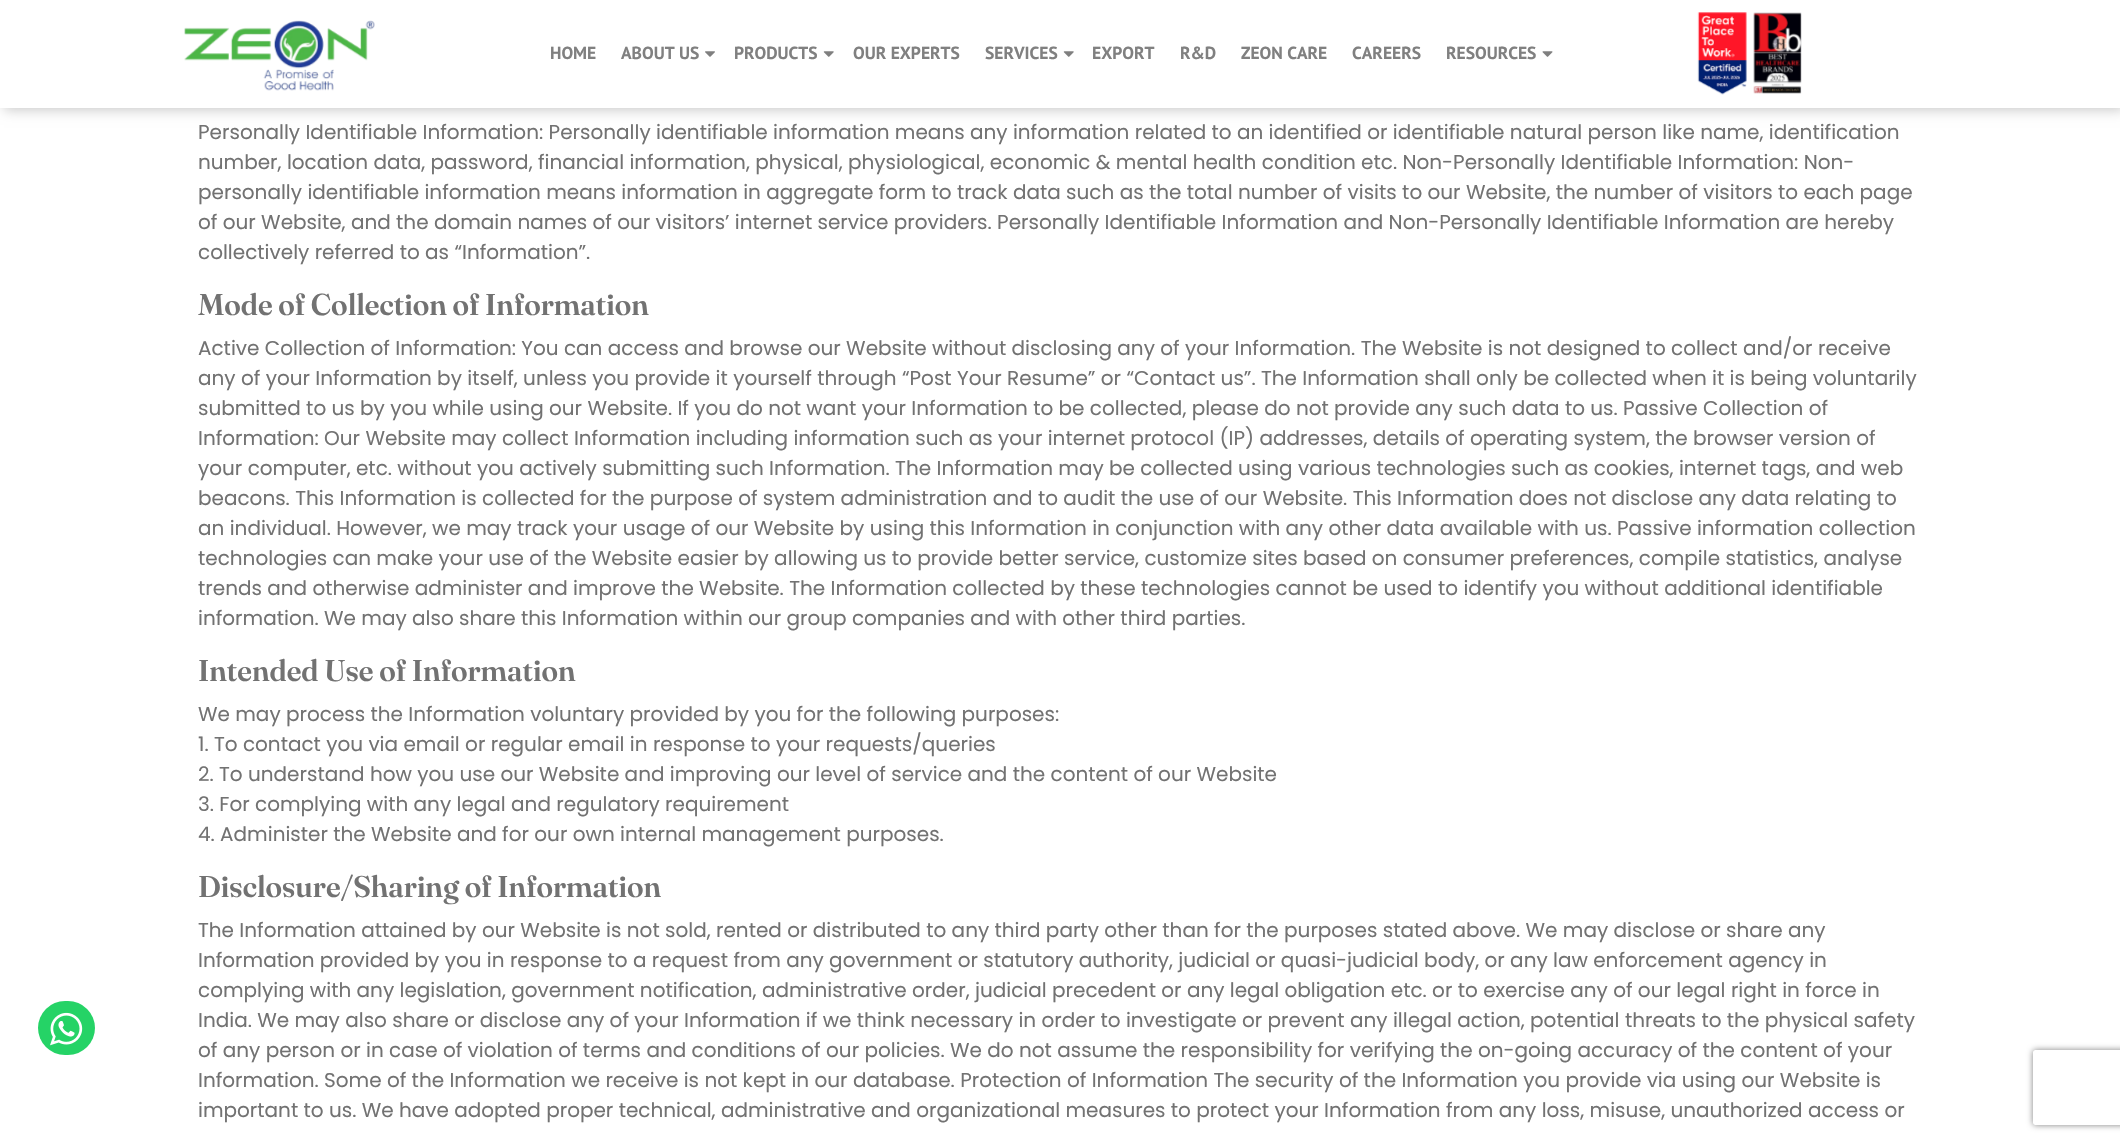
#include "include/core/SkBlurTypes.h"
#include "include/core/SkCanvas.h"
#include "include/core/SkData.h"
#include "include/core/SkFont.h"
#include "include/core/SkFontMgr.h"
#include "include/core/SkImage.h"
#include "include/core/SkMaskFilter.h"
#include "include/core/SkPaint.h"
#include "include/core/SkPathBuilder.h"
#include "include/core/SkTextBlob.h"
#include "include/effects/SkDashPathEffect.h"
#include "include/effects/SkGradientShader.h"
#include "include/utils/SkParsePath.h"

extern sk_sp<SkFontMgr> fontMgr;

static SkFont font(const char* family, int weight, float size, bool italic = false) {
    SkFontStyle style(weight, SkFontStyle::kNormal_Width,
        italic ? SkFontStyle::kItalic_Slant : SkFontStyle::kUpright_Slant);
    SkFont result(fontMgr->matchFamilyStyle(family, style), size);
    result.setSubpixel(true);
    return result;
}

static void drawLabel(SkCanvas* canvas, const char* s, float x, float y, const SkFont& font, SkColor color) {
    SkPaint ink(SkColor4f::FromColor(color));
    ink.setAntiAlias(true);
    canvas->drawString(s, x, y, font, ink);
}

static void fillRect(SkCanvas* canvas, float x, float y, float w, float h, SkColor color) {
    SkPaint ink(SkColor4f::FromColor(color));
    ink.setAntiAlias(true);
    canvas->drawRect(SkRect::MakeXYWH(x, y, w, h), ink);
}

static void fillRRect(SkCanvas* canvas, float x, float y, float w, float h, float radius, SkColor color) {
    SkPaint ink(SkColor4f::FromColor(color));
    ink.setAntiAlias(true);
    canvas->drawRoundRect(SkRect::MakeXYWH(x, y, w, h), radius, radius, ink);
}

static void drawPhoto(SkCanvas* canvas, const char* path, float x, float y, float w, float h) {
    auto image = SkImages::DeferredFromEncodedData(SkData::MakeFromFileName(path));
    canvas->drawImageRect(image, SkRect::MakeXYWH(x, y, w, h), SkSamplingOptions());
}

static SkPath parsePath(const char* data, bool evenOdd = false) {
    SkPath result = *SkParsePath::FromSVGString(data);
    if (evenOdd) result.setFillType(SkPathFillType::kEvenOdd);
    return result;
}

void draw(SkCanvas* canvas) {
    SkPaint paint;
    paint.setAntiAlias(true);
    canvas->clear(0xFFFFFFFF);
    canvas->save();
    canvas->clipPath(parsePath("M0 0H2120V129H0ZM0 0H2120V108H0Z", true), true);
    paint.setColor(0xFFC9C9C9);
    paint.setMaskFilter(SkMaskFilter::MakeBlur(kNormal_SkBlurStyle, 6));
    canvas->drawRect(SkRect::MakeXYWH(4, 3, 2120, 107), paint);
    paint.setMaskFilter(nullptr);
    canvas->restore();
    drawPhoto(canvas, "assets/img1.png", 184, 20, 191, 71);
    fillRect(canvas, 538, 107, 1021, 1, 0xFFFFFFFF);
    SkFont font1 = font("PT Sans", 700, 17.5f);
    drawLabel(canvas, "HOME", 550, 59, font1, 0xFF808080);
    drawLabel(canvas, "ABOUT US", 621, 59, font1, 0xFF808080);
    drawPhoto(canvas, "assets/img2.png", 705, 51, 10, 6);
    drawLabel(canvas, "PRODUCTS", 734, 59, font1, 0xFF808080);
    drawPhoto(canvas, "assets/img3.png", 823, 51, 11, 6);
    drawLabel(canvas, "OUR EXPERTS", 853, 59, font1, 0xFF808080);
    drawLabel(canvas, "SERVICES", 985, 59, font1, 0xFF808080);
    drawPhoto(canvas, "assets/img3.png", 1063, 51, 11, 6);
    drawLabel(canvas, "EXPORT", 1092, 59, font1, 0xFF808080);
    drawLabel(canvas, "R&D", 1180, 59, font1, 0xFF808080);
    drawLabel(canvas, "ZEON CARE", 1241, 59, font1, 0xFF808080);
    drawLabel(canvas, "CAREERS", 1352, 59, font1, 0xFF808080);
    drawLabel(canvas, "RESOURCES", 1446, 59, font1, 0xFF808080);
    drawPhoto(canvas, "assets/img4.png", 1542, 51, 11, 6);
    drawPhoto(canvas, "assets/img5.png", 1697, 12, 50, 83);
    drawPhoto(canvas, "assets/img6.png", 1753, 12, 49, 82);
    fillRRect(canvas, 38, 1001, 57, 54, 27, 0xFF25D366);
    drawPhoto(canvas, "assets/img7.png", 50, 1012, 33, 34);
    SkFont font2 = font("Poppins", 400, 20);
    drawLabel(canvas, "Personally Identifiable Information: Personally identifiable information means any information related to an identified or identifiable natural person like name, identification", 198, 139, font2, 0xFF727272);
    drawLabel(canvas, "number, location data, password, financial information, physical, physiological, economic & mental health condition etc. Non-Personally Identifiable Information: Non-", 198, 169, font2, 0xFF727272);
    drawLabel(canvas, "personally identifiable information means information in aggregate form to track data such as the total number of visits to our Website, the number of visitors to each page", 198, 199, font2, 0xFF727272);
    drawLabel(canvas, "of our Website, and the domain names of our visitors’ internet service providers. Personally Identifiable Information and Non-Personally Identifiable Information are hereby", 198, 229, font2, 0xFF727272);
    drawLabel(canvas, "collectively referred to as “Information”.", 198, 259, font2, 0xFF727272);
    SkFont font3 = font("Fraunces", 600, 30);
    drawLabel(canvas, "Mode of Collection of Information", 198, 315, font3, 0xFF727272);
    drawLabel(canvas, "Active Collection of Information: You can access and browse our Website without disclosing any of your Information. The Website is not designed to collect and/or receive", 198, 355, font2, 0xFF727272);
    drawLabel(canvas, "any of your Information by itself, unless you provide it yourself through “Post Your Resume” or “Contact us”. The Information shall only be collected when it is being voluntarily", 198, 385, font2, 0xFF727272);
    drawLabel(canvas, "submitted to us by you while using our Website. If you do not want your Information to be collected, please do not provide any such data to us. Passive Collection of", 198, 415, font2, 0xFF727272);
    drawLabel(canvas, "Information: Our Website may collect Information including information such as your internet protocol (IP) addresses, details of operating system, the browser version of", 198, 445, font2, 0xFF727272);
    drawLabel(canvas, "your computer, etc. without you actively submitting such Information. The Information may be collected using various technologies such as cookies, internet tags, and web", 198, 475, font2, 0xFF727272);
    drawLabel(canvas, "beacons. This Information is collected for the purpose of system administration and to audit the use of our Website. This Information does not disclose any data relating to", 198, 505, font2, 0xFF727272);
    drawLabel(canvas, "an individual. However, we may track your usage of our Website by using this Information in conjunction with any other data available with us. Passive information collection", 198, 535, font2, 0xFF727272);
    drawLabel(canvas, "technologies can make your use of the Website easier by allowing us to provide better service, customize sites based on consumer preferences, compile statistics, analyse", 198, 565, font2, 0xFF727272);
    drawLabel(canvas, "trends and otherwise administer and improve the Website. The Information collected by these technologies cannot be used to identify you without additional identifiable", 198, 595, font2, 0xFF727272);
    drawLabel(canvas, "information. We may also share this Information within our group companies and with other third parties.", 198, 625, font2, 0xFF727272);
    drawLabel(canvas, "Intended Use of Information", 198, 681, font3, 0xFF727272);
    drawLabel(canvas, "We may process the Information voluntary provided by you for the following purposes:", 198, 721, font2, 0xFF727272);
    drawLabel(canvas, "1. To contact you via email or regular email in response to your requests/queries", 198, 751, font2, 0xFF727272);
    drawLabel(canvas, "2. To understand how you use our Website and improving our level of service and the content of our Website", 198, 781, font2, 0xFF727272);
    drawLabel(canvas, "3. For complying with any legal and regulatory requirement", 198, 811, font2, 0xFF727272);
    drawLabel(canvas, "4. Administer the Website and for our own internal management purposes.", 198, 841, font2, 0xFF727272);
    drawLabel(canvas, "Disclosure/Sharing of Information", 198, 897, font3, 0xFF727272);
    drawLabel(canvas, "The Information attained by our Website is not sold, rented or distributed to any third party other than for the purposes stated above. We may disclose or share any", 198, 937, font2, 0xFF727272);
    drawLabel(canvas, "Information provided by you in response to a request from any government or statutory authority, judicial or quasi-judicial body, or any law enforcement agency in", 198, 967, font2, 0xFF727272);
    drawLabel(canvas, "complying with any legislation, government notification, administrative order, judicial precedent or any legal obligation etc. or to exercise any of our legal right in force in", 198, 997, font2, 0xFF727272);
    drawLabel(canvas, "India. We may also share or disclose any of your Information if we think necessary in order to investigate or prevent any illegal action, potential threats to the physical safety", 198, 1027, font2, 0xFF727272);
    drawLabel(canvas, "of any person or in case of violation of terms and conditions of our policies. We do not assume the responsibility for verifying the on-going accuracy of the content of your", 198, 1057, font2, 0xFF727272);
    drawLabel(canvas, "Information. Some of the Information we receive is not kept in our database. Protection of Information The security of the Information you provide via using our Website is", 198, 1087, font2, 0xFF727272);
    drawLabel(canvas, "important to us. We have adopted proper technical, administrative and organizational measures to protect your Information from any loss, misuse, unauthorized access or", 198, 1117, font2, 0xFF727272);
    canvas->save();
    canvas->clipPath(parsePath("M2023 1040H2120V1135H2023ZM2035.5 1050H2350.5C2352 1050 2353 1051 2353 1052.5V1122.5C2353 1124 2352 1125 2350.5 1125H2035.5C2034 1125 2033 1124 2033 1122.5V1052.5C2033 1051 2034 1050 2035.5 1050Z", true), true);
    paint.setColor(0xFF808080);
    paint.setMaskFilter(SkMaskFilter::MakeBlur(kNormal_SkBlurStyle, 3));
    canvas->drawRoundRect(SkRect::MakeXYWH(2033, 1050, 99, 75), 2.5f, 2.5f, paint);
    paint.setMaskFilter(nullptr);
    canvas->restore();
}
